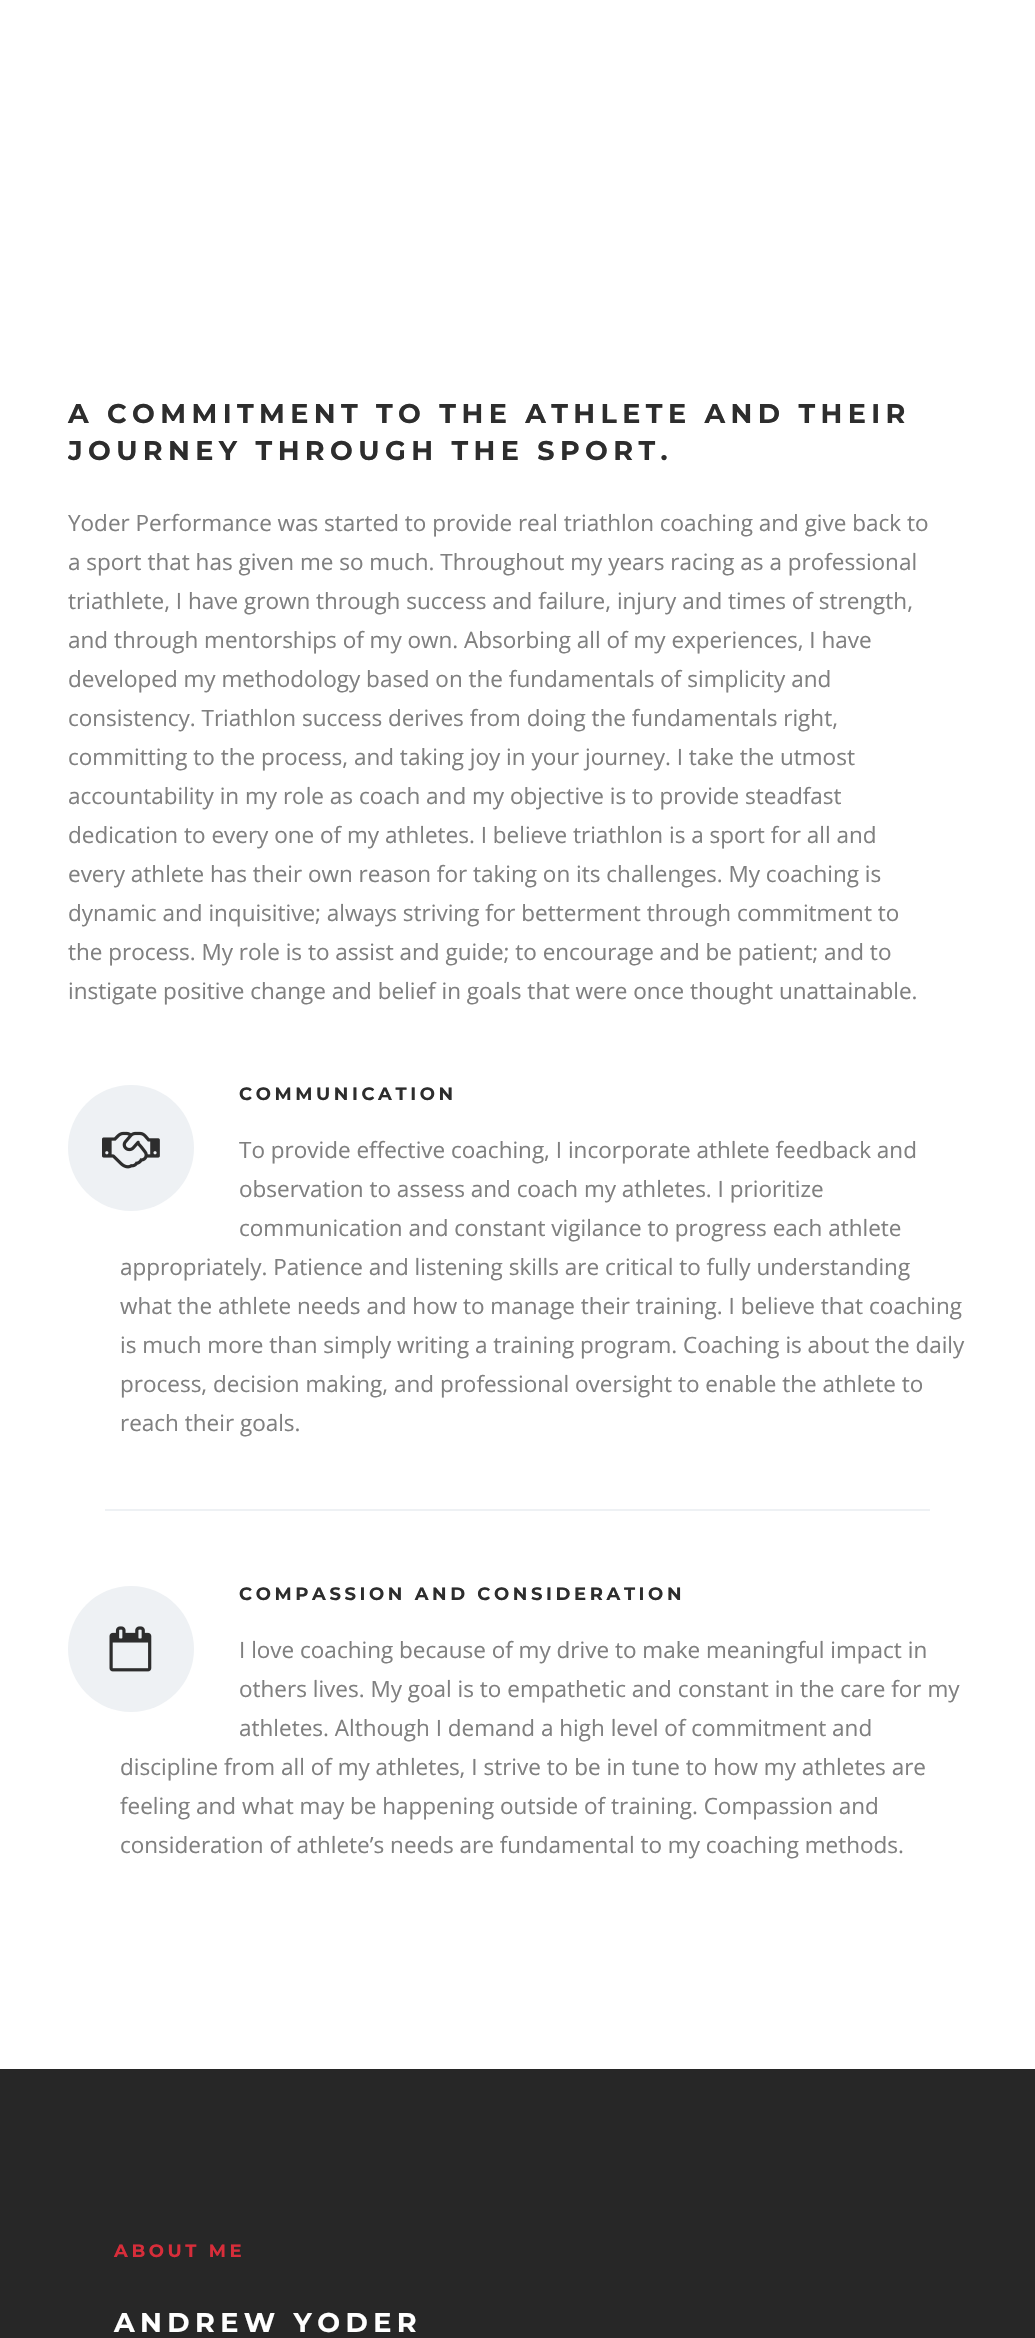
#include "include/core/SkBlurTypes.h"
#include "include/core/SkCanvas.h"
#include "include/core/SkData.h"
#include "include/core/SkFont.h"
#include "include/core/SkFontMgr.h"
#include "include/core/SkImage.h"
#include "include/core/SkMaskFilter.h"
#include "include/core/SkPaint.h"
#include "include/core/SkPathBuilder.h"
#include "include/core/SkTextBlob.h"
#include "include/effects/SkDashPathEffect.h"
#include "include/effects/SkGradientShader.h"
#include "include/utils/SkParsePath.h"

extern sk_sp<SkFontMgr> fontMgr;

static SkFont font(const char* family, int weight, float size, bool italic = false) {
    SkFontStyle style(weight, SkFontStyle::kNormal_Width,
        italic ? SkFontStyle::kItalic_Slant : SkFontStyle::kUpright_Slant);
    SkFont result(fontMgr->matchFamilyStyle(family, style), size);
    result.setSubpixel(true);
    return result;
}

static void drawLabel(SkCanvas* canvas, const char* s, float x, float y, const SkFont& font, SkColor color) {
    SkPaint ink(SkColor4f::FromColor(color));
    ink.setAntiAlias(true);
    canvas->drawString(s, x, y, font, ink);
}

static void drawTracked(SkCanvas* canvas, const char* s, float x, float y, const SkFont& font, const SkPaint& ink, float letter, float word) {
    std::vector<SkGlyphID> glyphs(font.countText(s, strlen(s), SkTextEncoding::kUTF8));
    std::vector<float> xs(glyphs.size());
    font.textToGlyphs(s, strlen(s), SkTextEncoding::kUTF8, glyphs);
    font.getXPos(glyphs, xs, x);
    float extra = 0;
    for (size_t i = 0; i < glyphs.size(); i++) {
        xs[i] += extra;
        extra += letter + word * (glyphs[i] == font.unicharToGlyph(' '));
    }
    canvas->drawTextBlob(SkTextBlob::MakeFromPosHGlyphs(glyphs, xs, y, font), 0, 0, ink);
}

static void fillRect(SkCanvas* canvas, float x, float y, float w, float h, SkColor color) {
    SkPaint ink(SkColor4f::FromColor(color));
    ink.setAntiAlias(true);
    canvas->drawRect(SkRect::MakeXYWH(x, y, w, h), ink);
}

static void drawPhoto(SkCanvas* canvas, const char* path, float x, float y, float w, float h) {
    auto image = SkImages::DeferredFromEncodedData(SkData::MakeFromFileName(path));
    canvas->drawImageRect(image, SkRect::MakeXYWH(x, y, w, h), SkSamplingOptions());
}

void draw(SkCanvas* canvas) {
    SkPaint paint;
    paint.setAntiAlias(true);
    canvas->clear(0xFFFFFFFF);
    SkFont font1 = font("Montserrat", 700, 27);
    paint.setColor(0xFF2D2D2D);
    drawTracked(canvas, "A COMMITMENT TO THE ATHLETE AND THEIR", 68, 423, font1, paint, 5.4f, 0);
    canvas->save();
    canvas->clipRect(SkRect::MakeXYWH(68, 318, 900, 1605));
    drawTracked(canvas, "JOURNEY THROUGH THE SPORT.", 68, 460, font1, paint, 5.4f, 0);
    canvas->restore();
    SkFont font2 = font("Open Sans", 400, 22.5f);
    drawLabel(canvas, "Yoder Performance was started to provide real triathlon coaching and give back to", 68, 531, font2, 0xFF808080);
    drawLabel(canvas, "a sport that has given me so much. Throughout my years racing as a professional", 68, 570, font2, 0xFF808080);
    drawLabel(canvas, "triathlete, I have grown through success and failure, injury and times of strength,", 68, 609, font2, 0xFF808080);
    drawLabel(canvas, "and through mentorships of my own. Absorbing all of my experiences, I have", 68, 648, font2, 0xFF808080);
    drawLabel(canvas, "developed my methodology based on the fundamentals of simplicity and", 68, 687, font2, 0xFF808080);
    drawLabel(canvas, "consistency. Triathlon success derives from doing the fundamentals right,", 68, 726, font2, 0xFF808080);
    drawLabel(canvas, "committing to the process, and taking joy in your journey. I take the utmost", 68, 765, font2, 0xFF808080);
    drawLabel(canvas, "accountability in my role as coach and my objective is to provide steadfast", 68, 804, font2, 0xFF808080);
    drawLabel(canvas, "dedication to every one of my athletes. I believe triathlon is a sport for all and", 68, 843, font2, 0xFF808080);
    drawLabel(canvas, "every athlete has their own reason for taking on its challenges. My coaching is", 68, 882, font2, 0xFF808080);
    drawLabel(canvas, "dynamic and inquisitive; always striving for betterment through commitment to", 68, 921, font2, 0xFF808080);
    drawLabel(canvas, "the process. My role is to assist and guide; to encourage and be patient; and to", 68, 960, font2, 0xFF808080);
    drawLabel(canvas, "instigate positive change and belief in goals that were once thought unattainable.", 68, 999, font2, 0xFF808080);
    paint.setColor(0xFFEEF1F4);
    canvas->drawCircle(131, 1148, 63, paint);
    drawPhoto(canvas, "assets/img1.png", 102, 1131, 58, 38);
    SkFont font3 = font("Montserrat", 700, 18);
    paint.setColor(0xFF2D2D2D);
    drawTracked(canvas, "COMMUNICATION", 239, 1100, font3, paint, 3.6f, 0);
    drawLabel(canvas, "To provide effective coaching, I incorporate athlete feedback and", 239, 1158, font2, 0xFF808080);
    drawLabel(canvas, "observation to assess and coach my athletes. I prioritize", 239, 1197, font2, 0xFF808080);
    drawLabel(canvas, "communication and constant vigilance to progress each athlete", 239, 1236, font2, 0xFF808080);
    drawLabel(canvas, "appropriately. Patience and listening skills are critical to fully understanding", 120, 1275, font2, 0xFF808080);
    drawLabel(canvas, "what the athlete needs and how to manage their training. I believe that coaching", 120, 1314, font2, 0xFF808080);
    drawLabel(canvas, "is much more than simply writing a training program. Coaching is about the daily", 120, 1353, font2, 0xFF808080);
    drawLabel(canvas, "process, decision making, and professional oversight to enable the athlete to", 120, 1392, font2, 0xFF808080);
    drawLabel(canvas, "reach their goals.", 120, 1431, font2, 0xFF808080);
    fillRect(canvas, 105, 1509, 825, 2, 0xFFEEF1F4);
    paint.setColor(0xFFEEF1F4);
    canvas->drawCircle(131, 1649, 63, paint);
    drawPhoto(canvas, "assets/img2.png", 109, 1626, 43, 46);
    paint.setColor(0xFF2D2D2D);
    drawTracked(canvas, "COMPASSION AND CONSIDERATION", 239, 1600, font3, paint, 3.6f, 0);
    drawLabel(canvas, "I love coaching because of my drive to make meaningful impact in", 239, 1658, font2, 0xFF808080);
    drawLabel(canvas, "others lives. My goal is to empathetic and constant in the care for my", 239, 1697, font2, 0xFF808080);
    drawLabel(canvas, "athletes. Although I demand a high level of commitment and", 239, 1736, font2, 0xFF808080);
    drawLabel(canvas, "discipline from all of my athletes, I strive to be in tune to how my athletes are", 120, 1775, font2, 0xFF808080);
    drawLabel(canvas, "feeling and what may be happening outside of training. Compassion and", 120, 1814, font2, 0xFF808080);
    drawLabel(canvas, "consideration of athlete’s needs are fundamental to my coaching methods.", 120, 1853, font2, 0xFF808080);
    fillRect(canvas, 0, 2069, 1035, 269, 0xFF272727);
    paint.setColor(0xFFD82D3A);
    drawTracked(canvas, "ABOUT ME", 114, 2257, font3, paint, 3.6f, 0);
    paint.setColor(0xFFFFFFFF);
    drawTracked(canvas, "ANDREW YODER", 114, 2332, font1, paint, 5.4f, 0);
}
